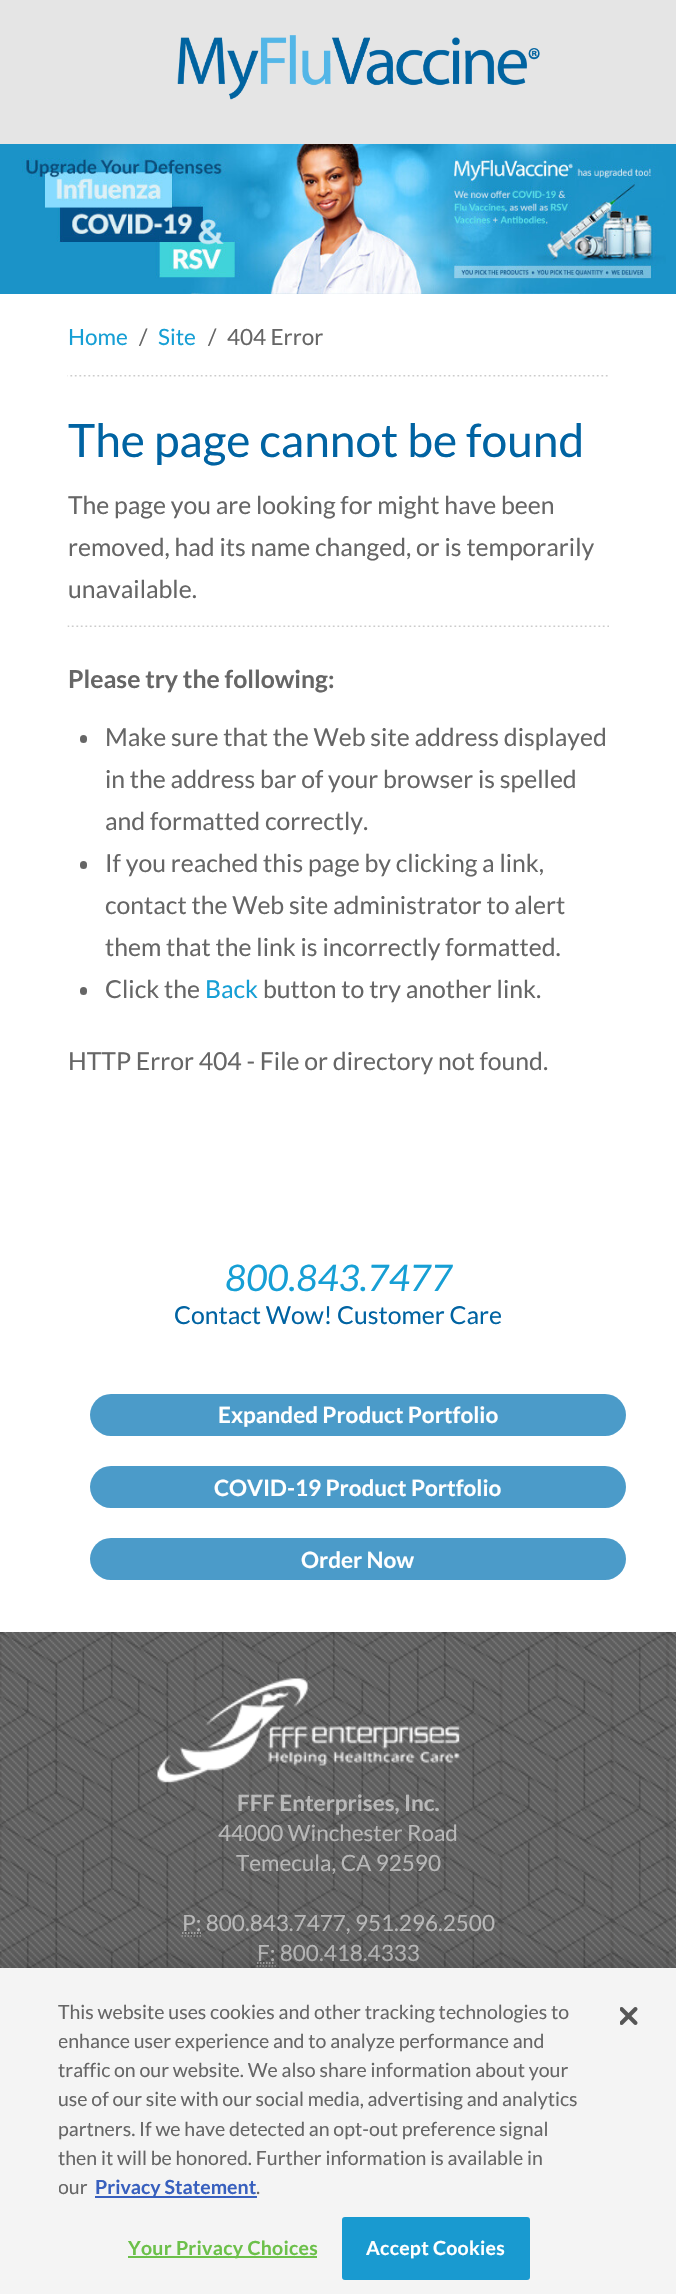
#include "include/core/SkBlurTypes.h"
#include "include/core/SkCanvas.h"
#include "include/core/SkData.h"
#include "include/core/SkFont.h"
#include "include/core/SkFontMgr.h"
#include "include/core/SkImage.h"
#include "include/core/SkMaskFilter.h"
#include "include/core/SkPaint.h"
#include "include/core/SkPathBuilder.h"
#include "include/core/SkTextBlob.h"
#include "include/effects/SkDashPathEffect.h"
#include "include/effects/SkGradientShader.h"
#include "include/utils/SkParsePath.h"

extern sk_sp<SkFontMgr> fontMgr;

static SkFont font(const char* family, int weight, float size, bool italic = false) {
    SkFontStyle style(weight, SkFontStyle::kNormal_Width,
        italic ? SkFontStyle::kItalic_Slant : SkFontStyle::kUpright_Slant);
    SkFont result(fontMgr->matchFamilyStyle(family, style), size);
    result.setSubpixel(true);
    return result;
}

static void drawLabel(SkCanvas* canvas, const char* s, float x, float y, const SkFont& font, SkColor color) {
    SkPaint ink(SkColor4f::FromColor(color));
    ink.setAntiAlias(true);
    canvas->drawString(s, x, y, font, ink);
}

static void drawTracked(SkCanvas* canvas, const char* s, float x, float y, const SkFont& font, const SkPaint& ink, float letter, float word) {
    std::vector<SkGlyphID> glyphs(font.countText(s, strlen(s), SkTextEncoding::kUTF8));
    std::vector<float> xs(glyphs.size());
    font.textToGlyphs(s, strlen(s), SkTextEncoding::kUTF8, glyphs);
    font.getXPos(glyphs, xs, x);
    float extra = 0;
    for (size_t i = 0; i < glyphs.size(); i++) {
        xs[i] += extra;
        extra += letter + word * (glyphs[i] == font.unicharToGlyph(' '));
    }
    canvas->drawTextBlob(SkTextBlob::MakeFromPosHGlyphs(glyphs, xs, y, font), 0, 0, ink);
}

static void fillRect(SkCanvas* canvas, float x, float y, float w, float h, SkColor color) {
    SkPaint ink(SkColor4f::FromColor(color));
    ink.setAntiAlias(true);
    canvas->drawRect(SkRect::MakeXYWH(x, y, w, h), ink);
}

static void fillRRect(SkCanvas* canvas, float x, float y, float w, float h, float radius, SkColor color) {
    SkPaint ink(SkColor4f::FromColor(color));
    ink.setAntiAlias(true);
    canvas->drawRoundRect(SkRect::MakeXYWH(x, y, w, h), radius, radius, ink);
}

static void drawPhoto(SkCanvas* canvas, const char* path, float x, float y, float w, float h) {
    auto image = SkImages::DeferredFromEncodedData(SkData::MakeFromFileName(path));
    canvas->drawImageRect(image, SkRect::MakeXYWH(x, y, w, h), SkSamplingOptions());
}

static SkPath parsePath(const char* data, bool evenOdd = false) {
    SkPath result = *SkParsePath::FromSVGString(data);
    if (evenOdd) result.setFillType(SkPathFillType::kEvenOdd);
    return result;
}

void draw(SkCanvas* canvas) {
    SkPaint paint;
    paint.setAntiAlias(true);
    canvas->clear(0xFFFFFFFF);
    fillRect(canvas, 0, 0, 676, 144, 0xFFE5E5E5);
    drawPhoto(canvas, "assets/img1.png", 177, 35, 363, 65);
    fillRect(canvas, 0, 144, 676, 150, 0xFF1B93C8);
    drawPhoto(canvas, "assets/img2.png", 21, 144, 645, 150);
    drawPhoto(canvas, "assets/img3.png", 67, 375, 541, 2);
    SkFont font1 = font("Lato", 400, 22.5f);
    drawLabel(canvas, "Home", 68, 345, font1, 0xFF169FD5);
    drawLabel(canvas, "/", 139, 345, font1, 0xFF666666);
    drawLabel(canvas, "Site", 158, 345, font1, 0xFF169FD5);
    drawLabel(canvas, "/", 208, 345, font1, 0xFF666666);
    drawLabel(canvas, "404 Error", 227, 345, font1, 0xFF666666);
    SkFont font2 = font("Lato", 400, 46.1f);
    drawLabel(canvas, "The page cannot be found", 68, 457, font2, 0xFF0063A2);
    SkFont font3 = font("Lato", 400, 24.75f);
    drawLabel(canvas, "The page you are looking for might have been", 68, 514, font3, 0xFF666666);
    drawLabel(canvas, "removed, had its name changed, or is temporarily", 68, 556, font3, 0xFF666666);
    drawLabel(canvas, "unavailable.", 68, 598, font3, 0xFF666666);
    drawPhoto(canvas, "assets/img4.png", 67, 625, 542, 2);
    SkFont font4 = font("Lato", 700, 24.75f);
    drawLabel(canvas, "Please try the following:", 68, 688, font4, 0xFF666666);
    fillRRect(canvas, 80, 735, 7, 8, 3.5f, 0xFF666666);
    drawLabel(canvas, "Make sure that the Web site address displayed", 105, 746, font3, 0xFF666666);
    drawLabel(canvas, "in the address bar of your browser is spelled", 105, 788, font3, 0xFF666666);
    drawLabel(canvas, "and formatted correctly.", 105, 830, font3, 0xFF666666);
    fillRRect(canvas, 80, 861, 7, 8, 3.5f, 0xFF666666);
    drawLabel(canvas, "If you reached this page by clicking a link,", 105, 872, font3, 0xFF666666);
    drawLabel(canvas, "contact the Web site administrator to alert", 105, 914, font3, 0xFF666666);
    drawLabel(canvas, "them that the link is incorrectly formatted.", 105, 956, font3, 0xFF666666);
    fillRRect(canvas, 80, 987, 7, 8, 3.5f, 0xFF666666);
    drawLabel(canvas, "Click the", 105, 998, font3, 0xFF666666);
    drawLabel(canvas, "Back", 205, 998, font3, 0xFF169FD5);
    drawLabel(canvas, "button to try another link.", 263, 998, font3, 0xFF666666);
    drawLabel(canvas, "HTTP Error 404 - File or directory not found.", 68, 1070, font3, 0xFF666666);
    SkFont font5 = font("Lato", 400, 36.5f, true);
    drawLabel(canvas, "800.843.7477", 225, 1291, font5, 0xFF169FD5);
    drawLabel(canvas, "Contact Wow! Customer Care", 174, 1324, font3, 0xFF0063A2);
    fillRRect(canvas, 90, 1394, 536, 42, 21, 0xFF4B9BC9);
    SkFont font6 = font("Lato", 700, 22.5f);
    drawLabel(canvas, "Expanded Product Portfolio", 218, 1423, font6, 0xFFFFFFFF);
    fillRRect(canvas, 90, 1466, 536, 42, 21, 0xFF4B9BC9);
    drawLabel(canvas, "COVID-19 Product Portfolio", 214, 1496, font6, 0xFFFFFFFF);
    fillRRect(canvas, 90, 1538, 536, 42, 21, 0xFF4B9BC9);
    drawLabel(canvas, "Order Now", 301, 1568, font6, 0xFFFFFFFF);
    drawPhoto(canvas, "assets/img5.png", 0, 1632, 676, 336);
    drawPhoto(canvas, "assets/img6.png", 157, 1678, 303, 105);
    drawLabel(canvas, "FFF Enterprises, Inc.", 237, 1811, font6, 0xFFB8B8B8);
    drawLabel(canvas, "44000 Winchester Road", 218, 1841, font1, 0xFFB8B8B8);
    drawLabel(canvas, "Temecula, CA 92590", 236, 1871, font1, 0xFFB8B8B8);
    paint.setStroke(true);
    paint.setStrokeWidth(1.5f);
    paint.setColor(0xFFB8B8B8);
    paint.setPathEffect(SkDashPathEffect::Make({{1.5f, 1.5f}}, 0));
    canvas->drawPath(parsePath("M182 1933H201"), paint);
    paint.setPathEffect(nullptr);
    drawLabel(canvas, "P: 800.843.7477, 951.296.2500", 182, 1931, font1, 0xFFB8B8B8);
    paint.setColor(0xFF999999);
    paint.setPathEffect(SkDashPathEffect::Make({{1.5f, 1.5f}}, 0));
    canvas->drawPath(parsePath("M181.5 1936H201"), paint);
    paint.setPathEffect(nullptr);
    drawLabel(canvas, "F: 800.418.4333", 257, 1961, font1, 0xFFB8B8B8);
    paint.setPathEffect(SkDashPathEffect::Make({{1.5f, 1.5f}}, 0));
    canvas->drawPath(parsePath("M256.5 1966H276"), paint);
    paint.setPathEffect(nullptr);
    paint.setColor(0xFFB8B8B8);
    paint.setPathEffect(SkDashPathEffect::Make({{1.5f, 1.5f}}, 0));
    canvas->drawPath(parsePath("M257 1963H275"), paint);
    paint.setPathEffect(nullptr);
    paint.setStroke(false);
    paint.setColor(0x33000000);
    paint.setMaskFilter(SkMaskFilter::MakeBlur(kNormal_SkBlurStyle, 13.5f));
    canvas->drawRect(SkRect::MakeXYWH(0, 1968, 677, 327), paint);
    paint.setMaskFilter(nullptr);
    fillRect(canvas, 0, 1968, 676, 326, 0xFFF4F4F4);
    SkFont font7 = font("Lato", 400, 19.5f);
    drawLabel(canvas, "This website uses cookies and other tracking technologies to", 58, 2019, font7, 0xFF666666);
    canvas->save();
    canvas->clipRect(SkRect::MakeXYWH(59, 1998, 529, 204));
    drawLabel(canvas, "enhance user experience and to analyze performance and", 58, 2048, font7, 0xFF666666);
    canvas->restore();
    drawLabel(canvas, "traffic on our website. We also share information about your", 58, 2077, font7, 0xFF666666);
    drawLabel(canvas, "use of our site with our social media, advertising and analytics", 58, 2106, font7, 0xFF666666);
    drawLabel(canvas, "partners. If we have detected an opt-out preference signal", 58, 2136, font7, 0xFF666666);
    drawLabel(canvas, "then it will be honored. Further information is available in", 58, 2165, font7, 0xFF666666);
    canvas->save();
    canvas->clipRect(SkRect::MakeXYWH(59, 1998, 529, 204));
    drawLabel(canvas, "our", 58, 2194, font7, 0xFF666666);
    canvas->restore();
    fillRect(canvas, 95, 2196, 162, 2, 0xFF3860BE);
    SkFont font8 = font("Lato", 700, 19.5f);
    drawLabel(canvas, "Privacy Statement", 95, 2194, font8, 0xFF3860BE);
    drawLabel(canvas, ".", 256, 2194, font7, 0xFF666666);
    fillRect(canvas, 128, 2256, 189, 2, 0xFF6CC04A);
    paint.setColor(0xFF6CC04A);
    drawTracked(canvas, "Your Privacy Choices", 128, 2255, font8, paint, 0.25f, 0);
    paint.setColor(0xFF199AD0);
    canvas->drawRoundRect(SkRect::MakeXYWH(343, 2218, 186, 61), 2, 2, paint);
    paint.setStroke(true);
    paint.setStrokeWidth(2);
    canvas->drawRoundRect(SkRect::MakeXYWH(343, 2218, 186, 61), 2, 2, paint);
    paint.setStroke(false);
    paint.setColor(0xFFFFFFFF);
    drawTracked(canvas, "Accept Cookies", 366, 2255, font8, paint, 0.25f, 0);
    drawPhoto(canvas, "assets/img7.png", 620, 2007, 18, 18);
}
